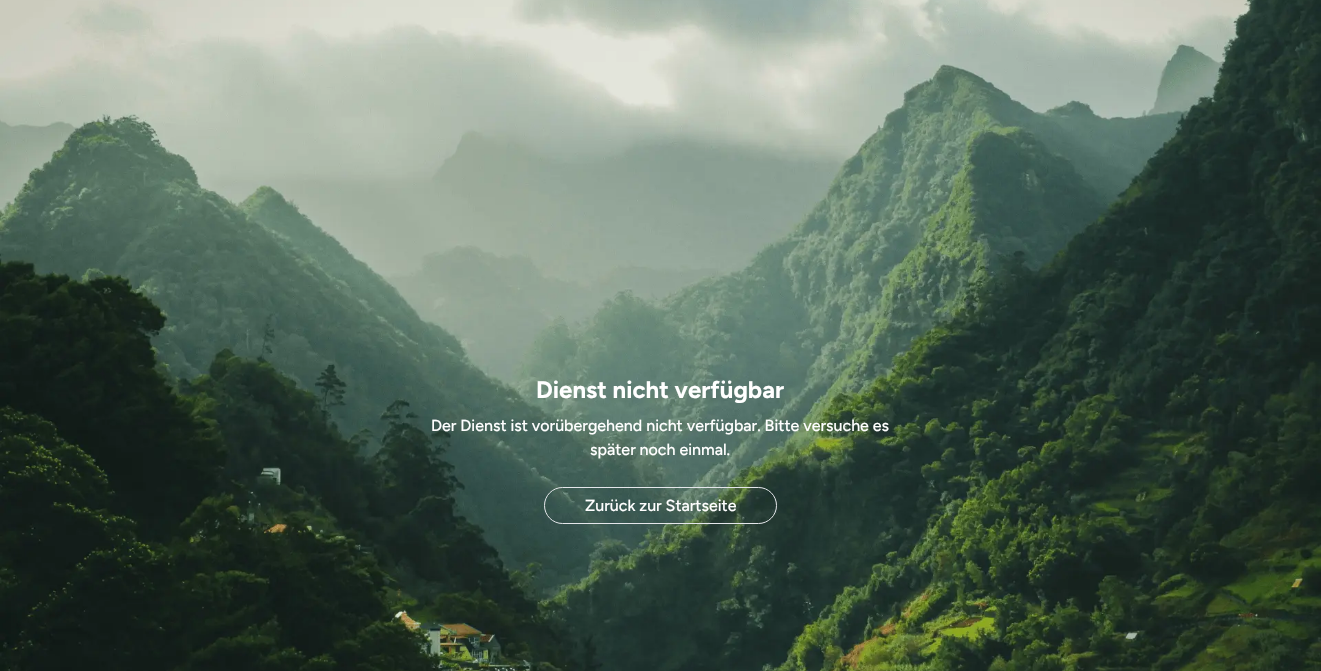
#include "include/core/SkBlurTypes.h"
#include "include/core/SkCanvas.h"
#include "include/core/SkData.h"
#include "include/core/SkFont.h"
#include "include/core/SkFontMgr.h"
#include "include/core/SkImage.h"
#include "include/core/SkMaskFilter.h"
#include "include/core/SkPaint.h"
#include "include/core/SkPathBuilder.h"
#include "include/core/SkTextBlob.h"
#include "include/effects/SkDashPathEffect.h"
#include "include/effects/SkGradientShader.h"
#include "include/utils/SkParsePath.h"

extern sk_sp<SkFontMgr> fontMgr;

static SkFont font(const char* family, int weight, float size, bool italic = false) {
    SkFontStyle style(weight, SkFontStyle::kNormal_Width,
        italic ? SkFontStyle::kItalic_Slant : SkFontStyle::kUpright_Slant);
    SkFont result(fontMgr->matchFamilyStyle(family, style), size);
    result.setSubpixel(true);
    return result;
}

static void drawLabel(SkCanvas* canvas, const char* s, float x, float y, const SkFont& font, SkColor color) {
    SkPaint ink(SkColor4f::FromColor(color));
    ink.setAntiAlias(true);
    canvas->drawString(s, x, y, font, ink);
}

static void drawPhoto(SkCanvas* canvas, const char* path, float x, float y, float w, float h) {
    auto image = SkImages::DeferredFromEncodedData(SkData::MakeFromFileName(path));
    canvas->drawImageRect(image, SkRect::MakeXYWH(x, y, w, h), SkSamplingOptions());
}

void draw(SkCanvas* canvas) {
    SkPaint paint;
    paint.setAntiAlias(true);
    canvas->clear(0xFFFFFFFF);
    drawPhoto(canvas, "assets/img1.png", 0, 0, 1321, 671);
    SkFont font1 = font("Figtree", 700, 24);
    drawLabel(canvas, "Dienst nicht verfügbar", 536, 398, font1, 0xFFFFFFFF);
    SkFont font2 = font("Figtree", 500, 16);
    drawLabel(canvas, "Der Dienst ist vorübergehend nicht verfügbar. Bitte versuche es", 431, 431, font2, 0xFFFFFFFF);
    drawLabel(canvas, "später noch einmal.", 590, 455, font2, 0xFFFFFFFF);
    paint.setStroke(true);
    paint.setStrokeWidth(1);
    paint.setColor(0xFFE5E7EB);
    canvas->drawRoundRect(SkRect::MakeXYWH(544.5f, 487.5f, 232, 36), 18, 18, paint);
    drawLabel(canvas, "Zurück zur Startseite", 585, 511, font2, 0xFFFFFFFF);
}
